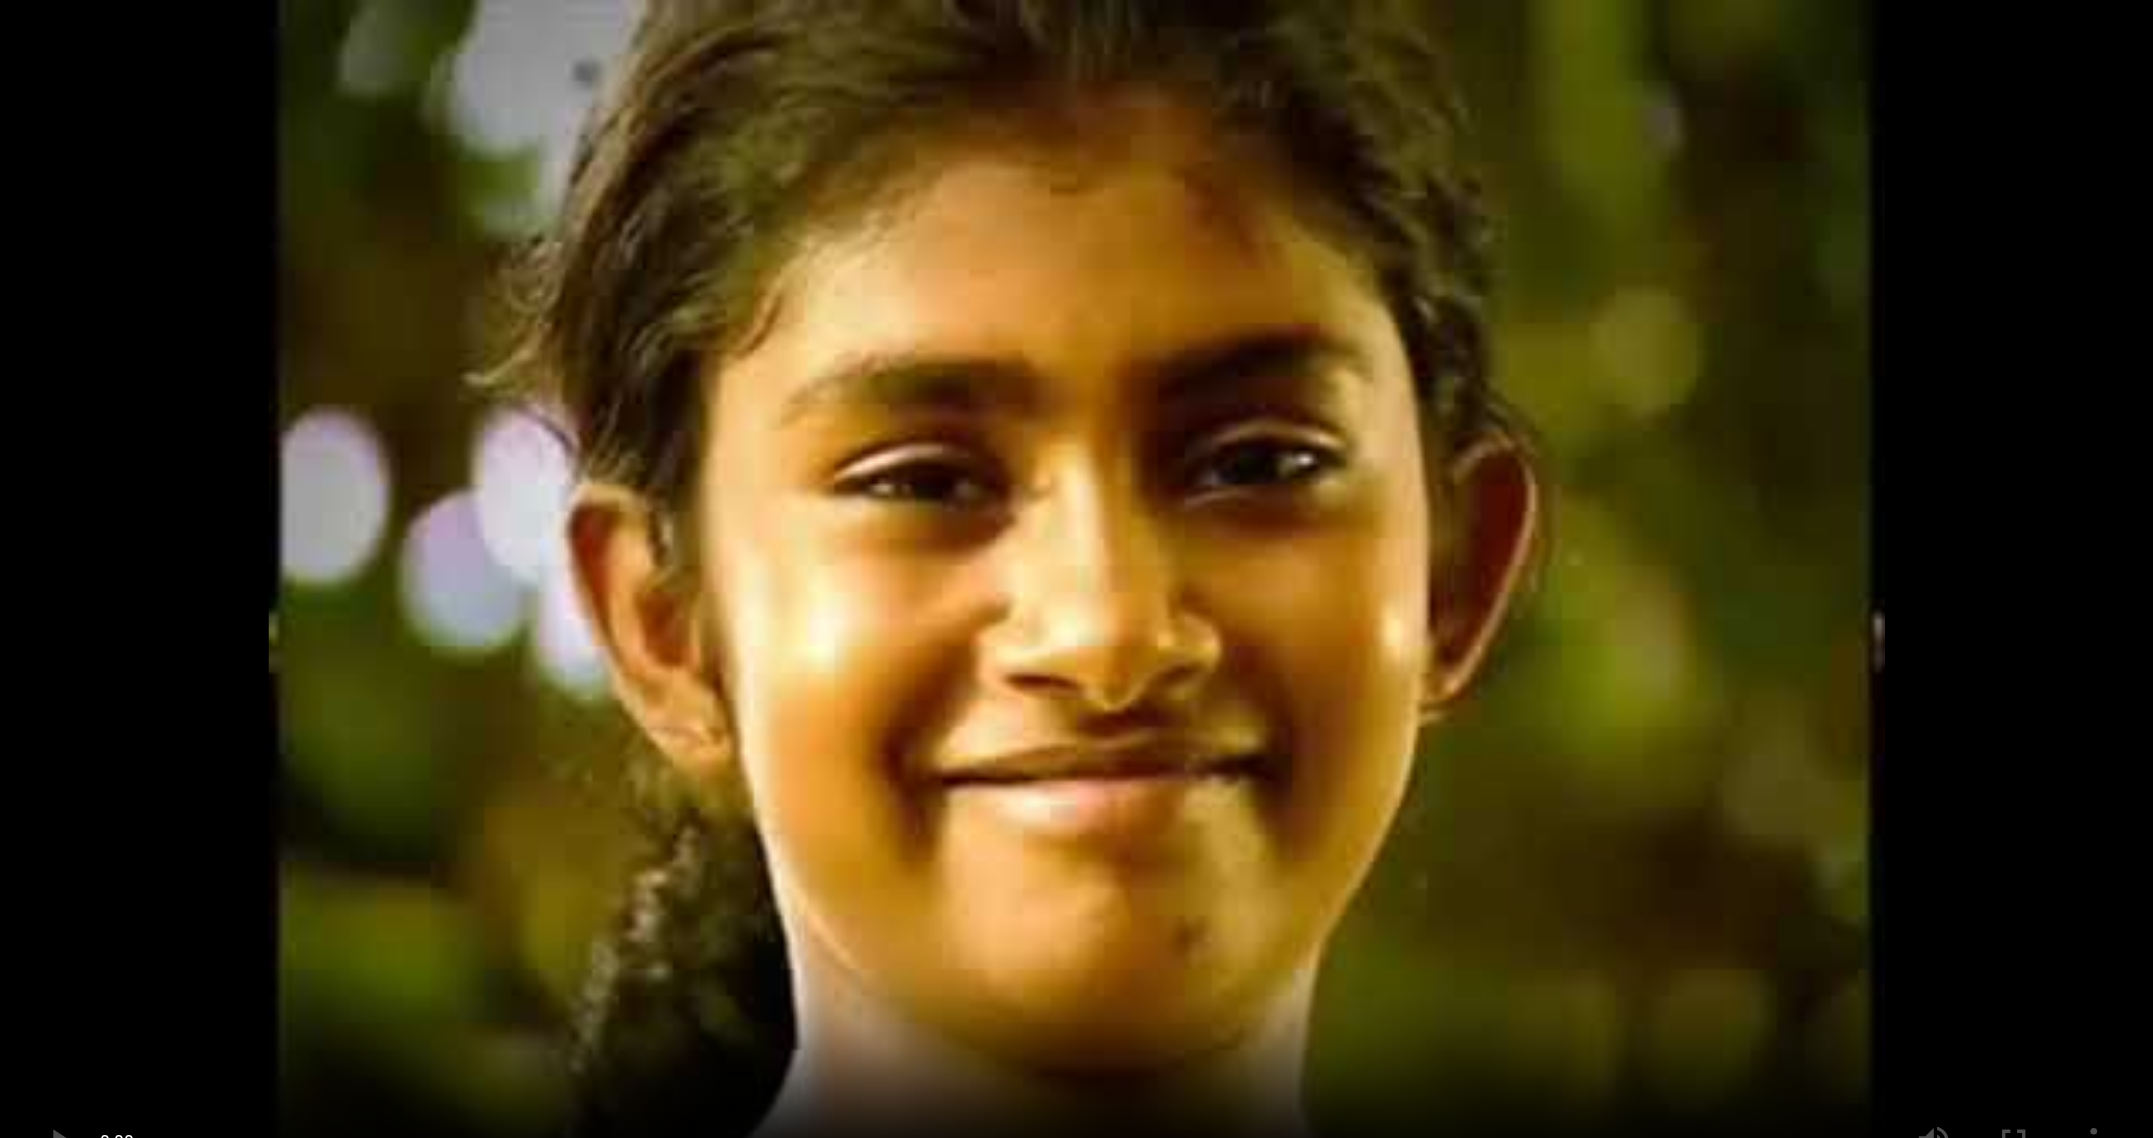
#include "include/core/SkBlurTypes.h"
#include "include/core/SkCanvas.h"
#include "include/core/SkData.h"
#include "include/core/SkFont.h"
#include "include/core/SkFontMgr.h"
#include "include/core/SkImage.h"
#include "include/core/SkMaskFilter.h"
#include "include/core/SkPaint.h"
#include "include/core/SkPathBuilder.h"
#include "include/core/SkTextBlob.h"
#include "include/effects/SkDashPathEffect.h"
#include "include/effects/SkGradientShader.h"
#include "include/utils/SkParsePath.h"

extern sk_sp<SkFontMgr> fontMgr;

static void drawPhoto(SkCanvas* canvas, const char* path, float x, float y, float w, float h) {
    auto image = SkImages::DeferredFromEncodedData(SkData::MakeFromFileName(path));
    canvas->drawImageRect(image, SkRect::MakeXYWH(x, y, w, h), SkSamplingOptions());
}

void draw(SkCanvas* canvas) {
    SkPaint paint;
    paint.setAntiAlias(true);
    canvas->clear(0xFF000000);
    drawPhoto(canvas, "assets/img1.png", 53, 0, 2045, 1138);
}
